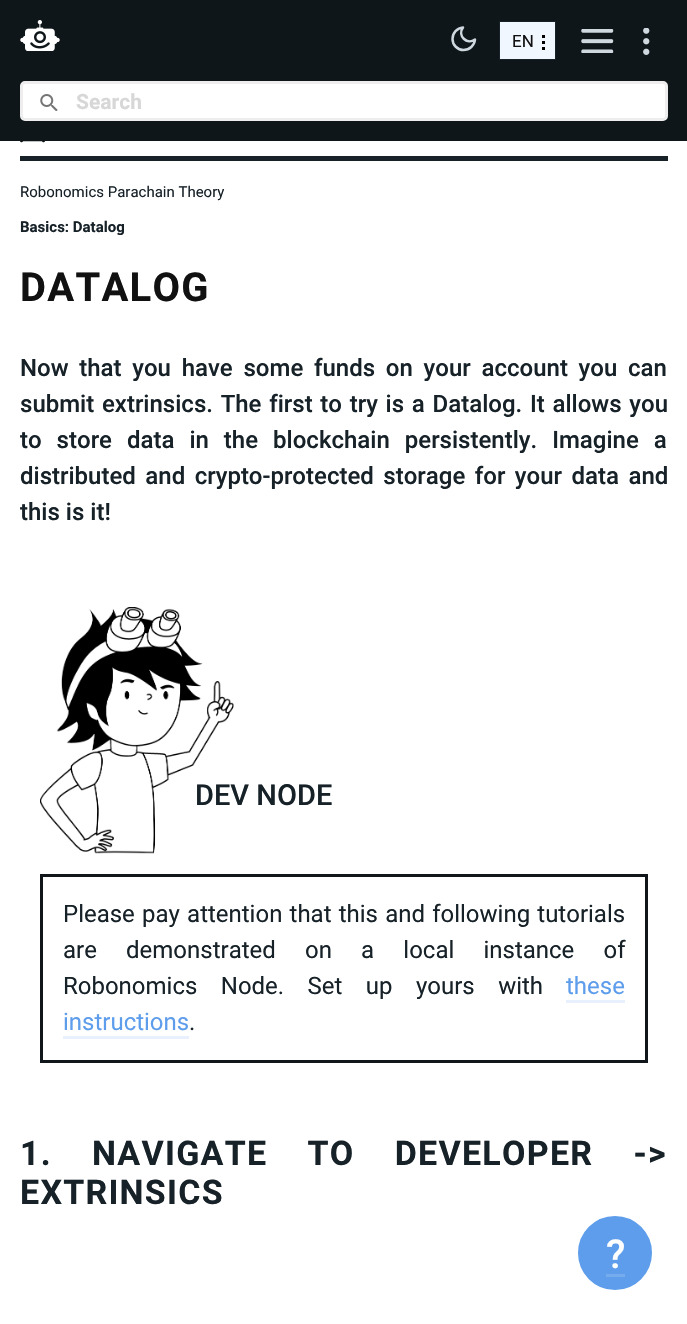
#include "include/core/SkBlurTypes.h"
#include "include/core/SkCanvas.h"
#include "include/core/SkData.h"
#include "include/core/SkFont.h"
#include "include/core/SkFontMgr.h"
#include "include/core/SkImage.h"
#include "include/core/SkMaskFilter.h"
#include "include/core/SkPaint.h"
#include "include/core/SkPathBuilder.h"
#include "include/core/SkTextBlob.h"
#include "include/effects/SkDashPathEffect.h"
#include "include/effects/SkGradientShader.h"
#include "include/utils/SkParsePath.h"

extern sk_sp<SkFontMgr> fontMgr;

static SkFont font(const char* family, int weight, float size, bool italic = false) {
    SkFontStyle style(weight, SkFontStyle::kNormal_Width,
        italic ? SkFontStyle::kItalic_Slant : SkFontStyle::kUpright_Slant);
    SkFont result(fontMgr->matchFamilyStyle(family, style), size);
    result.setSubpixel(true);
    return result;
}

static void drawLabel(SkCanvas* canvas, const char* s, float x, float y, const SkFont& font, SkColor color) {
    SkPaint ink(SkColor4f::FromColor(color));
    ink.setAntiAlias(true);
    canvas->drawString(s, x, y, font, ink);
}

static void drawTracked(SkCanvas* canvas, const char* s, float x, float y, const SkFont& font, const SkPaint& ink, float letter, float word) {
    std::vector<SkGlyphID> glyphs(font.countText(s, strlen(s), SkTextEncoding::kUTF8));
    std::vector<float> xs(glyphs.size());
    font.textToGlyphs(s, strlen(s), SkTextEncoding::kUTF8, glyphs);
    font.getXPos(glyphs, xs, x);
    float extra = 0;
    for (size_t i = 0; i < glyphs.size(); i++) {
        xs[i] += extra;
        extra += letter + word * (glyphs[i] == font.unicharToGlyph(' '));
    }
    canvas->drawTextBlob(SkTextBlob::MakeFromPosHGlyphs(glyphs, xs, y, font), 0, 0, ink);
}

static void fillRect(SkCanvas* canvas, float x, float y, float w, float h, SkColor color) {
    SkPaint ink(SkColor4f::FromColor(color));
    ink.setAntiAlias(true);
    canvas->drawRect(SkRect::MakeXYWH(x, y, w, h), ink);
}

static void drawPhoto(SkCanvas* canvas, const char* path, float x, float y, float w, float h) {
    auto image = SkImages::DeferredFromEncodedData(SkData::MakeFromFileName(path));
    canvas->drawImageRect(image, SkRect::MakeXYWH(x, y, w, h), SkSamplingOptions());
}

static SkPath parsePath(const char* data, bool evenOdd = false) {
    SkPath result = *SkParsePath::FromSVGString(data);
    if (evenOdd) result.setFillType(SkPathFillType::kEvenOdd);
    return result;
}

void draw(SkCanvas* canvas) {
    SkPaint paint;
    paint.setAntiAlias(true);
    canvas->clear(0xFFFFFFFF);
    fillRect(canvas, 0, 0, 687, 141, 0xFF0E161A);
    drawPhoto(canvas, "assets/img1.png", 20, 20, 40, 31);
    paint.setStroke(true);
    paint.setStrokeWidth(2.5f);
    paint.setStrokeCap(SkPaint::kRound_Cap);
    paint.setStrokeJoin(SkPaint::kRound_Join);
    paint.setColor(0xFFCED8DE);
    canvas->drawPath(parsePath("M475 39.5C474.5 45.5 469.5 50 463.5 50C457.5 50 452.5 45 452.5 39C452.5 33 457 28 463 27.5C457 35.5 467 45.5 475 39.5Z"), paint);
    fillRect(canvas, 500, 22, 55, 37, 0xFFF0F7FF);
    fillRect(canvas, 542, 35, 3, 3, 0xFF000000);
    fillRect(canvas, 542, 41, 3, 3, 0xFF000000);
    fillRect(canvas, 542, 47, 3, 3, 0xFF000000);
    paint.setStrokeWidth(1);
    paint.setStrokeCap(SkPaint::kButt_Cap);
    paint.setStrokeJoin(SkPaint::kMiter_Join);
    paint.setColor(0xFF162128);
    canvas->drawRect(SkRect::MakeXYWH(499.5f, 21.5f, 56, 38), paint);
    SkFont font1 = font("Roboto", 400, 17);
    drawLabel(canvas, "EN", 512, 47, font1, 0xFF111111);
    drawPhoto(canvas, "assets/img2.png", 581, 29, 33, 24);
    drawPhoto(canvas, "assets/img3.png", 643, 28, 7, 27);
    paint.setStroke(false);
    paint.setColor(0xFFFFFFFF);
    canvas->drawRoundRect(SkRect::MakeXYWH(21.5f, 82.5f, 645, 37), 3.5f, 3.5f, paint);
    paint.setStroke(true);
    paint.setStrokeWidth(3);
    paint.setColor(0xFFEEEEEE);
    canvas->drawRoundRect(SkRect::MakeXYWH(21.5f, 82.5f, 645, 37), 3.5f, 3.5f, paint);
    drawPhoto(canvas, "assets/img4.png", 40, 94, 18, 17);
    SkFont font2 = font("Roboto", 700, 21);
    drawLabel(canvas, "Search", 76, 109, font2, 0xFFD7D7D7);
    fillRect(canvas, 20, 156, 648, 5, 0xFF162128);
    drawPhoto(canvas, "assets/img5.png", 20, 141, 25, 2);
    SkFont font3 = font("Roboto", 400, 15);
    drawLabel(canvas, "Robonomics Parachain Theory", 20, 197, font3, 0xFF162128);
    SkFont font4 = font("Roboto", 700, 15);
    drawLabel(canvas, "Basics: Datalog", 20, 232, font4, 0xFF162128);
    SkFont font5 = font("Roboto", 700, 40);
    paint.setStroke(false);
    paint.setColor(0xFF111111);
    drawTracked(canvas, "DATALOG", 20, 301, font5, paint, 1.25f, 0);
    SkFont font6 = font("Roboto", 500, 24);
    paint.setColor(0xFF162128);
    drawTracked(canvas, "Now that you have some funds on your account you can", 20, 376, font6, paint, 0, 4.75f);
    drawTracked(canvas, "submit extrinsics. The first to try is a Datalog. It allows you", 20, 412, font6, paint, 0, 1.75f);
    drawTracked(canvas, "to store data in the blockchain persistently. Imagine a", 20, 448, font6, paint, 0, 9);
    drawTracked(canvas, "distributed and crypto-protected storage for your data and", 20, 484, font6, paint, 0, 3.5f);
    drawLabel(canvas, "this is it!", 20, 520, font6, 0xFF162128);
    drawPhoto(canvas, "assets/img6.png", 40, 607, 194, 247);
    SkFont font7 = font("Roboto", 500, 29);
    drawLabel(canvas, "DEV NODE", 195, 805, font7, 0xFF162128);
    paint.setStroke(true);
    paint.setColor(0xFF10161A);
    canvas->drawRect(SkRect::MakeXYWH(41.5f, 875.5f, 605, 186), paint);
    SkFont font8 = font("Roboto", 400, 24);
    paint.setStroke(false);
    paint.setColor(0xFF162128);
    drawTracked(canvas, "Please pay attention that this and following tutorials", 63, 922, font8, paint, 0, 1.25f);
    drawTracked(canvas, "are demonstrated on a local instance of", 63, 958, font8, paint, 0, 23.25f);
    drawTracked(canvas, "Robonomics Node. Set up yours with", 63, 994, font8, paint, 0, 17.5f);
    drawLabel(canvas, "these", 566, 994, font8, 0xFF5D9DEB);
    fillRect(canvas, 566, 1000, 59, 3, 0xFFE7F0FC);
    drawLabel(canvas, "instructions", 63, 1030, font8, 0xFF5D9DEB);
    fillRect(canvas, 63, 1036, 126, 3, 0xFFE7F0FC);
    drawLabel(canvas, ".", 189, 1030, font8, 0xFF162128);
    SkFont font9 = font("Roboto", 700, 34);
    drawTracked(canvas, "1. NAVIGATE TO DEVELOPER ->", 20, 1165, font9, paint, 1.25f, 30.5f);
    drawTracked(canvas, "EXTRINSICS", 20, 1204, font9, paint, 1.25f, 0);
    paint.setColor(0xFF5D9DEB);
    canvas->drawCircle(615, 1253, 38.5f, paint);
    paint.setStroke(true);
    paint.setColor(0xFFFFFFFF);
    canvas->drawCircle(615, 1253, 38.5f, paint);
    SkFont font10 = font("Roboto", 500, 40);
    drawLabel(canvas, "?", 606, 1268, font10, 0xFFFFFFFF);
    fillRect(canvas, 606, 1274, 19, 3, 0xFF75ACEE);
}
